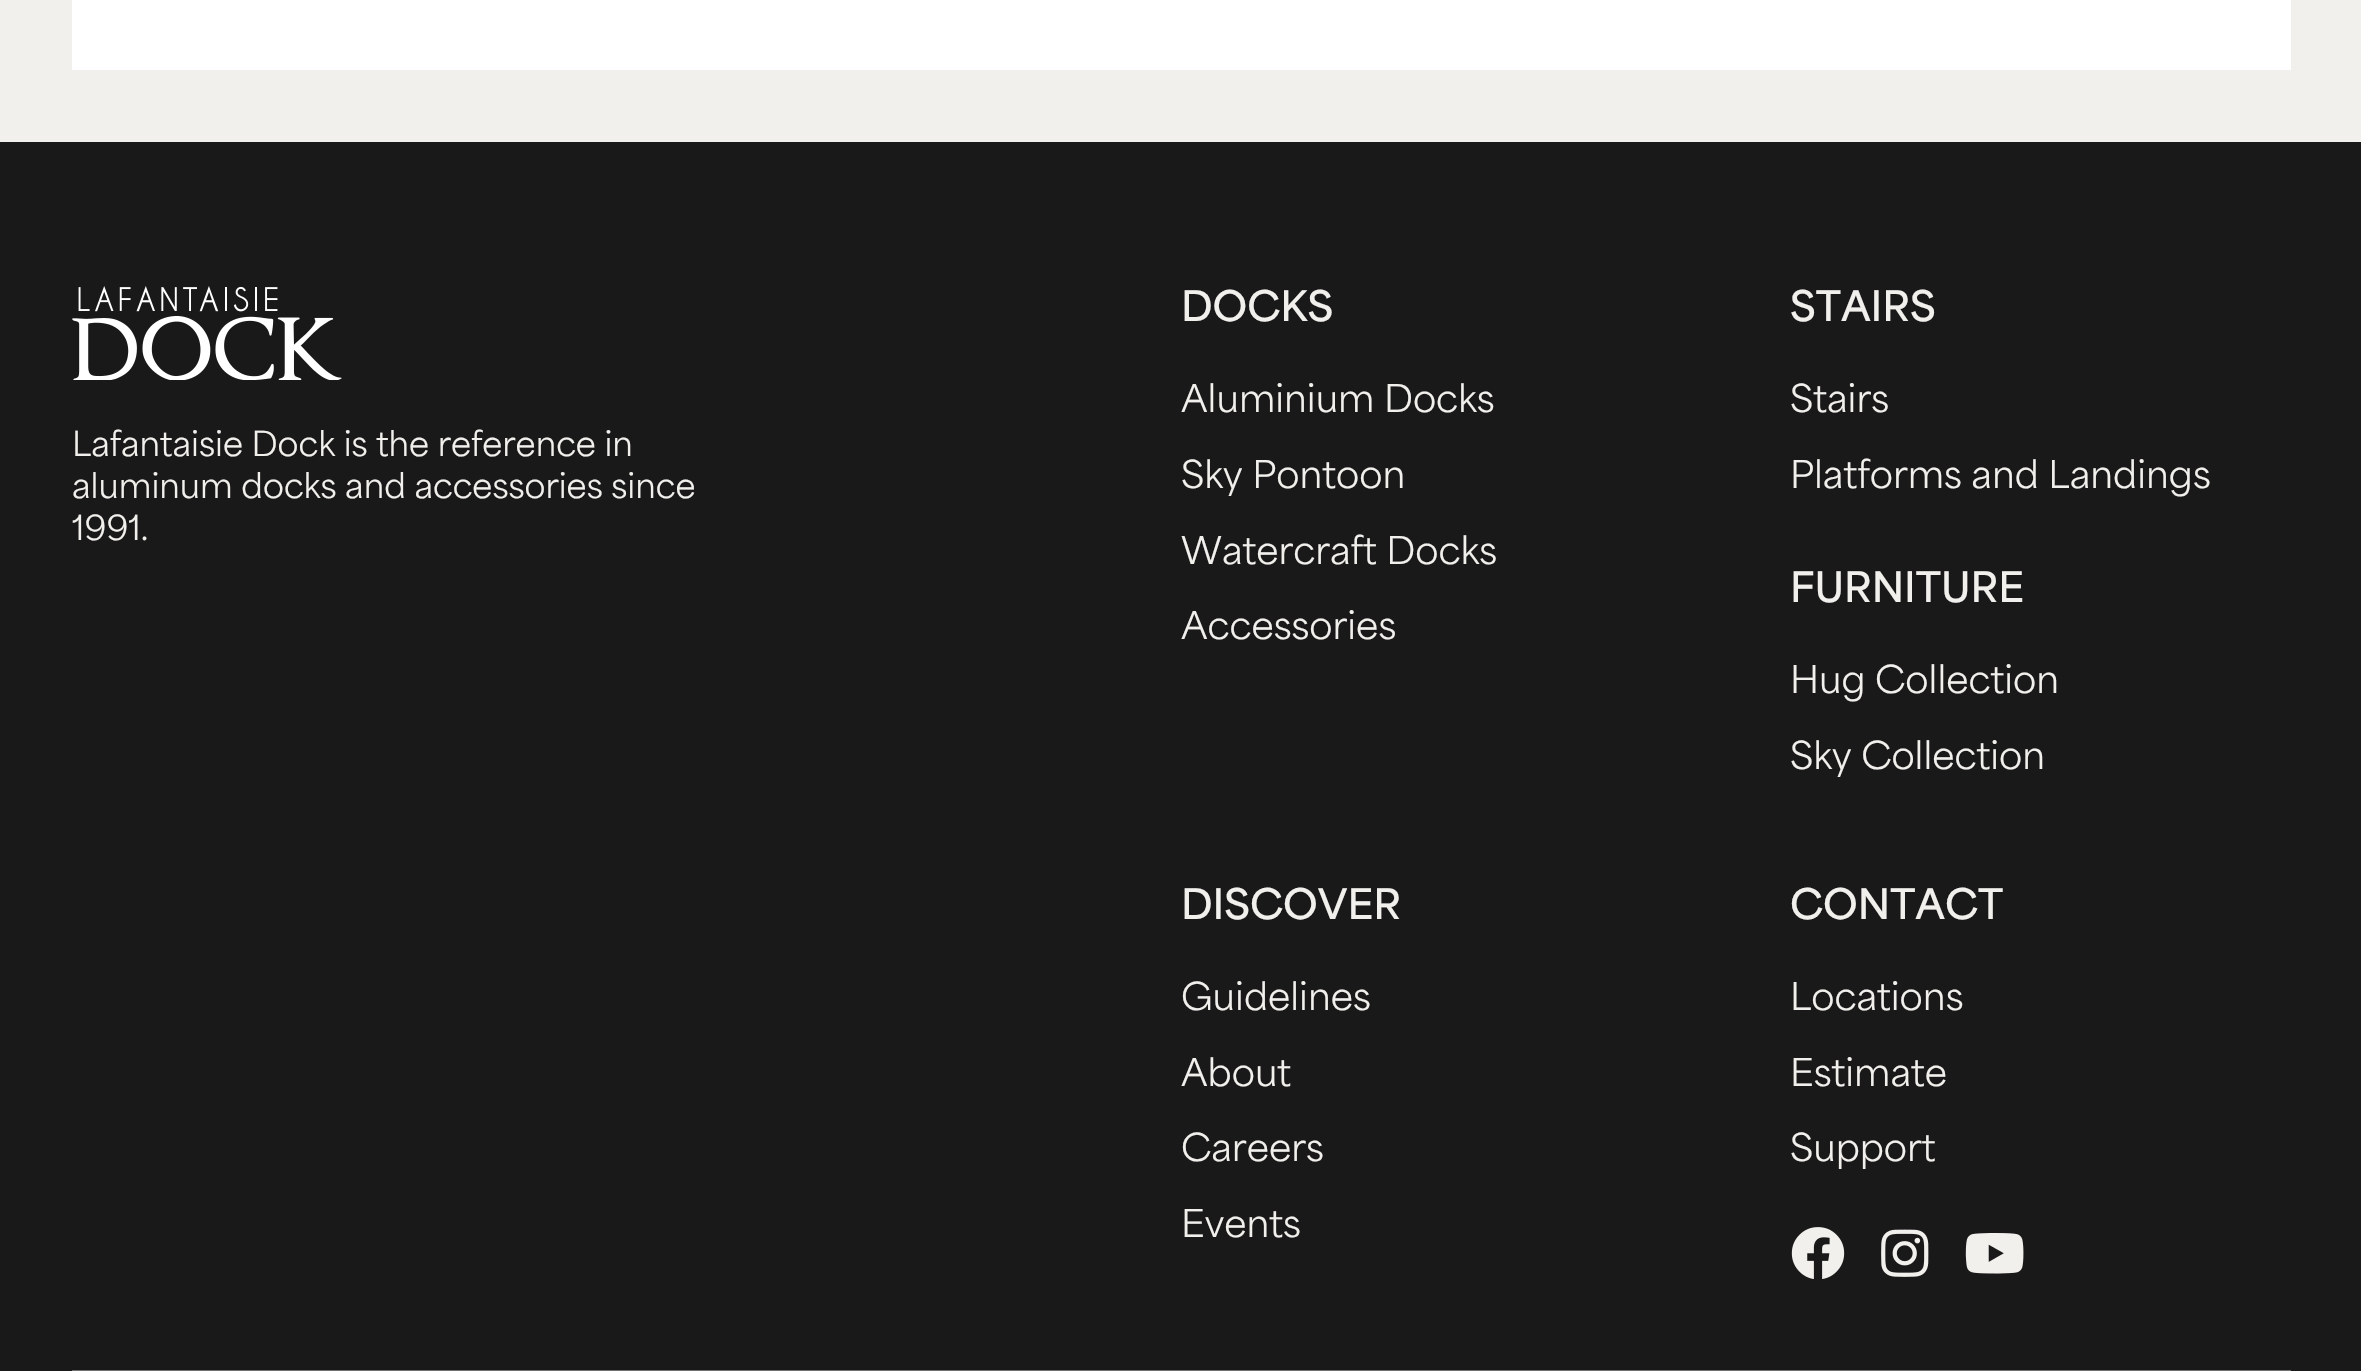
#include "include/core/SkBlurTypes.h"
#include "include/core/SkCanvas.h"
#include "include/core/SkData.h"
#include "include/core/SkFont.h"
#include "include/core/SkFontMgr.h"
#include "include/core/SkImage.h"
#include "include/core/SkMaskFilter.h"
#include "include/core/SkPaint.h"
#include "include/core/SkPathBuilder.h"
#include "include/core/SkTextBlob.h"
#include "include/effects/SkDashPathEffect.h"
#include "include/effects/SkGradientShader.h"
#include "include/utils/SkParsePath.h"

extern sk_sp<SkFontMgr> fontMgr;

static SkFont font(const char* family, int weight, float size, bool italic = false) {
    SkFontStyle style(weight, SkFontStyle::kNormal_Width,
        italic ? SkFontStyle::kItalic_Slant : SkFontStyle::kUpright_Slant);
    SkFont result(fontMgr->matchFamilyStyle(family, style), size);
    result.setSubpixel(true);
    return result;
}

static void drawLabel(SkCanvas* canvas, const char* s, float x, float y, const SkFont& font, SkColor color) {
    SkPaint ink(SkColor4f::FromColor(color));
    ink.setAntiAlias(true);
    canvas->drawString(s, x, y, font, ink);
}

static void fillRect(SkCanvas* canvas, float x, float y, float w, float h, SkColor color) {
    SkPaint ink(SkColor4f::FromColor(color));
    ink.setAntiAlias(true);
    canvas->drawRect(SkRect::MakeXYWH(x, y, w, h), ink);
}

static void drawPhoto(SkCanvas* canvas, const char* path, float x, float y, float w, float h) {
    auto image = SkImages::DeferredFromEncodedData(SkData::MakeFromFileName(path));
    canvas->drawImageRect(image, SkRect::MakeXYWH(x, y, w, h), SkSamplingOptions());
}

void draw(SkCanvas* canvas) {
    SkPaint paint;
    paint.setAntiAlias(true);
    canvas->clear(0xFFF2F0ED);
    fillRect(canvas, 72, 0, 2219, 70, 0xFFFFFFFF);
    fillRect(canvas, 0, 142, 2361, 1229, 0xFF1A1919);
    drawPhoto(canvas, "assets/img1.png", 72, 286, 270, 94);
    SkFont font1 = font("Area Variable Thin", 400, 32.4f);
    drawLabel(canvas, "Lafantaisie Dock is the reference in", 72, 456, font1, 0xFFF2F0ED);
    drawLabel(canvas, "aluminum docks and accessories since", 72, 498, font1, 0xFFF2F0ED);
    drawLabel(canvas, "1991.", 72, 540, font1, 0xFFF2F0ED);
    SkFont font2 = font("Area Variable Thin", 600, 39.5f);
    drawLabel(canvas, "DOCKS", 1181, 321, font2, 0xFFF2F0ED);
    SkFont font3 = font("Area Variable Thin", 400, 36);
    drawLabel(canvas, "Aluminium Docks", 1181, 412, font3, 0xFFF2F0ED);
    drawLabel(canvas, "Sky Pontoon", 1181, 488, font3, 0xFFF2F0ED);
    drawLabel(canvas, "Watercraft Docks", 1181, 564, font3, 0xFFF2F0ED);
    drawLabel(canvas, "Accessories", 1181, 639, font3, 0xFFF2F0ED);
    drawLabel(canvas, "STAIRS", 1790, 321, font2, 0xFFF2F0ED);
    drawLabel(canvas, "Stairs", 1790, 412, font3, 0xFFF2F0ED);
    drawLabel(canvas, "Platforms and Landings", 1790, 488, font3, 0xFFF2F0ED);
    drawLabel(canvas, "FURNITURE", 1790, 602, font2, 0xFFF2F0ED);
    drawLabel(canvas, "Hug Collection", 1790, 693, font3, 0xFFF2F0ED);
    drawLabel(canvas, "Sky Collection", 1790, 769, font3, 0xFFF2F0ED);
    drawLabel(canvas, "DISCOVER", 1181, 919, font2, 0xFFF2F0ED);
    drawLabel(canvas, "Guidelines", 1181, 1010, font3, 0xFFF2F0ED);
    drawLabel(canvas, "About", 1181, 1086, font3, 0xFFF2F0ED);
    drawLabel(canvas, "Careers", 1181, 1161, font3, 0xFFF2F0ED);
    drawLabel(canvas, "Events", 1181, 1237, font3, 0xFFF2F0ED);
    drawLabel(canvas, "CONTACT", 1790, 919, font2, 0xFFF2F0ED);
    drawLabel(canvas, "Locations", 1790, 1010, font3, 0xFFF2F0ED);
    drawLabel(canvas, "Estimate", 1790, 1086, font3, 0xFFF2F0ED);
    drawLabel(canvas, "Support", 1790, 1161, font3, 0xFFF2F0ED);
    drawPhoto(canvas, "assets/img2.png", 1791, 1227, 54, 52);
    drawPhoto(canvas, "assets/img3.png", 1881, 1229, 48, 48);
    drawPhoto(canvas, "assets/img4.png", 1965, 1233, 59, 41);
    fillRect(canvas, 72, 1370, 2219, 1, 0xFF707070);
}
